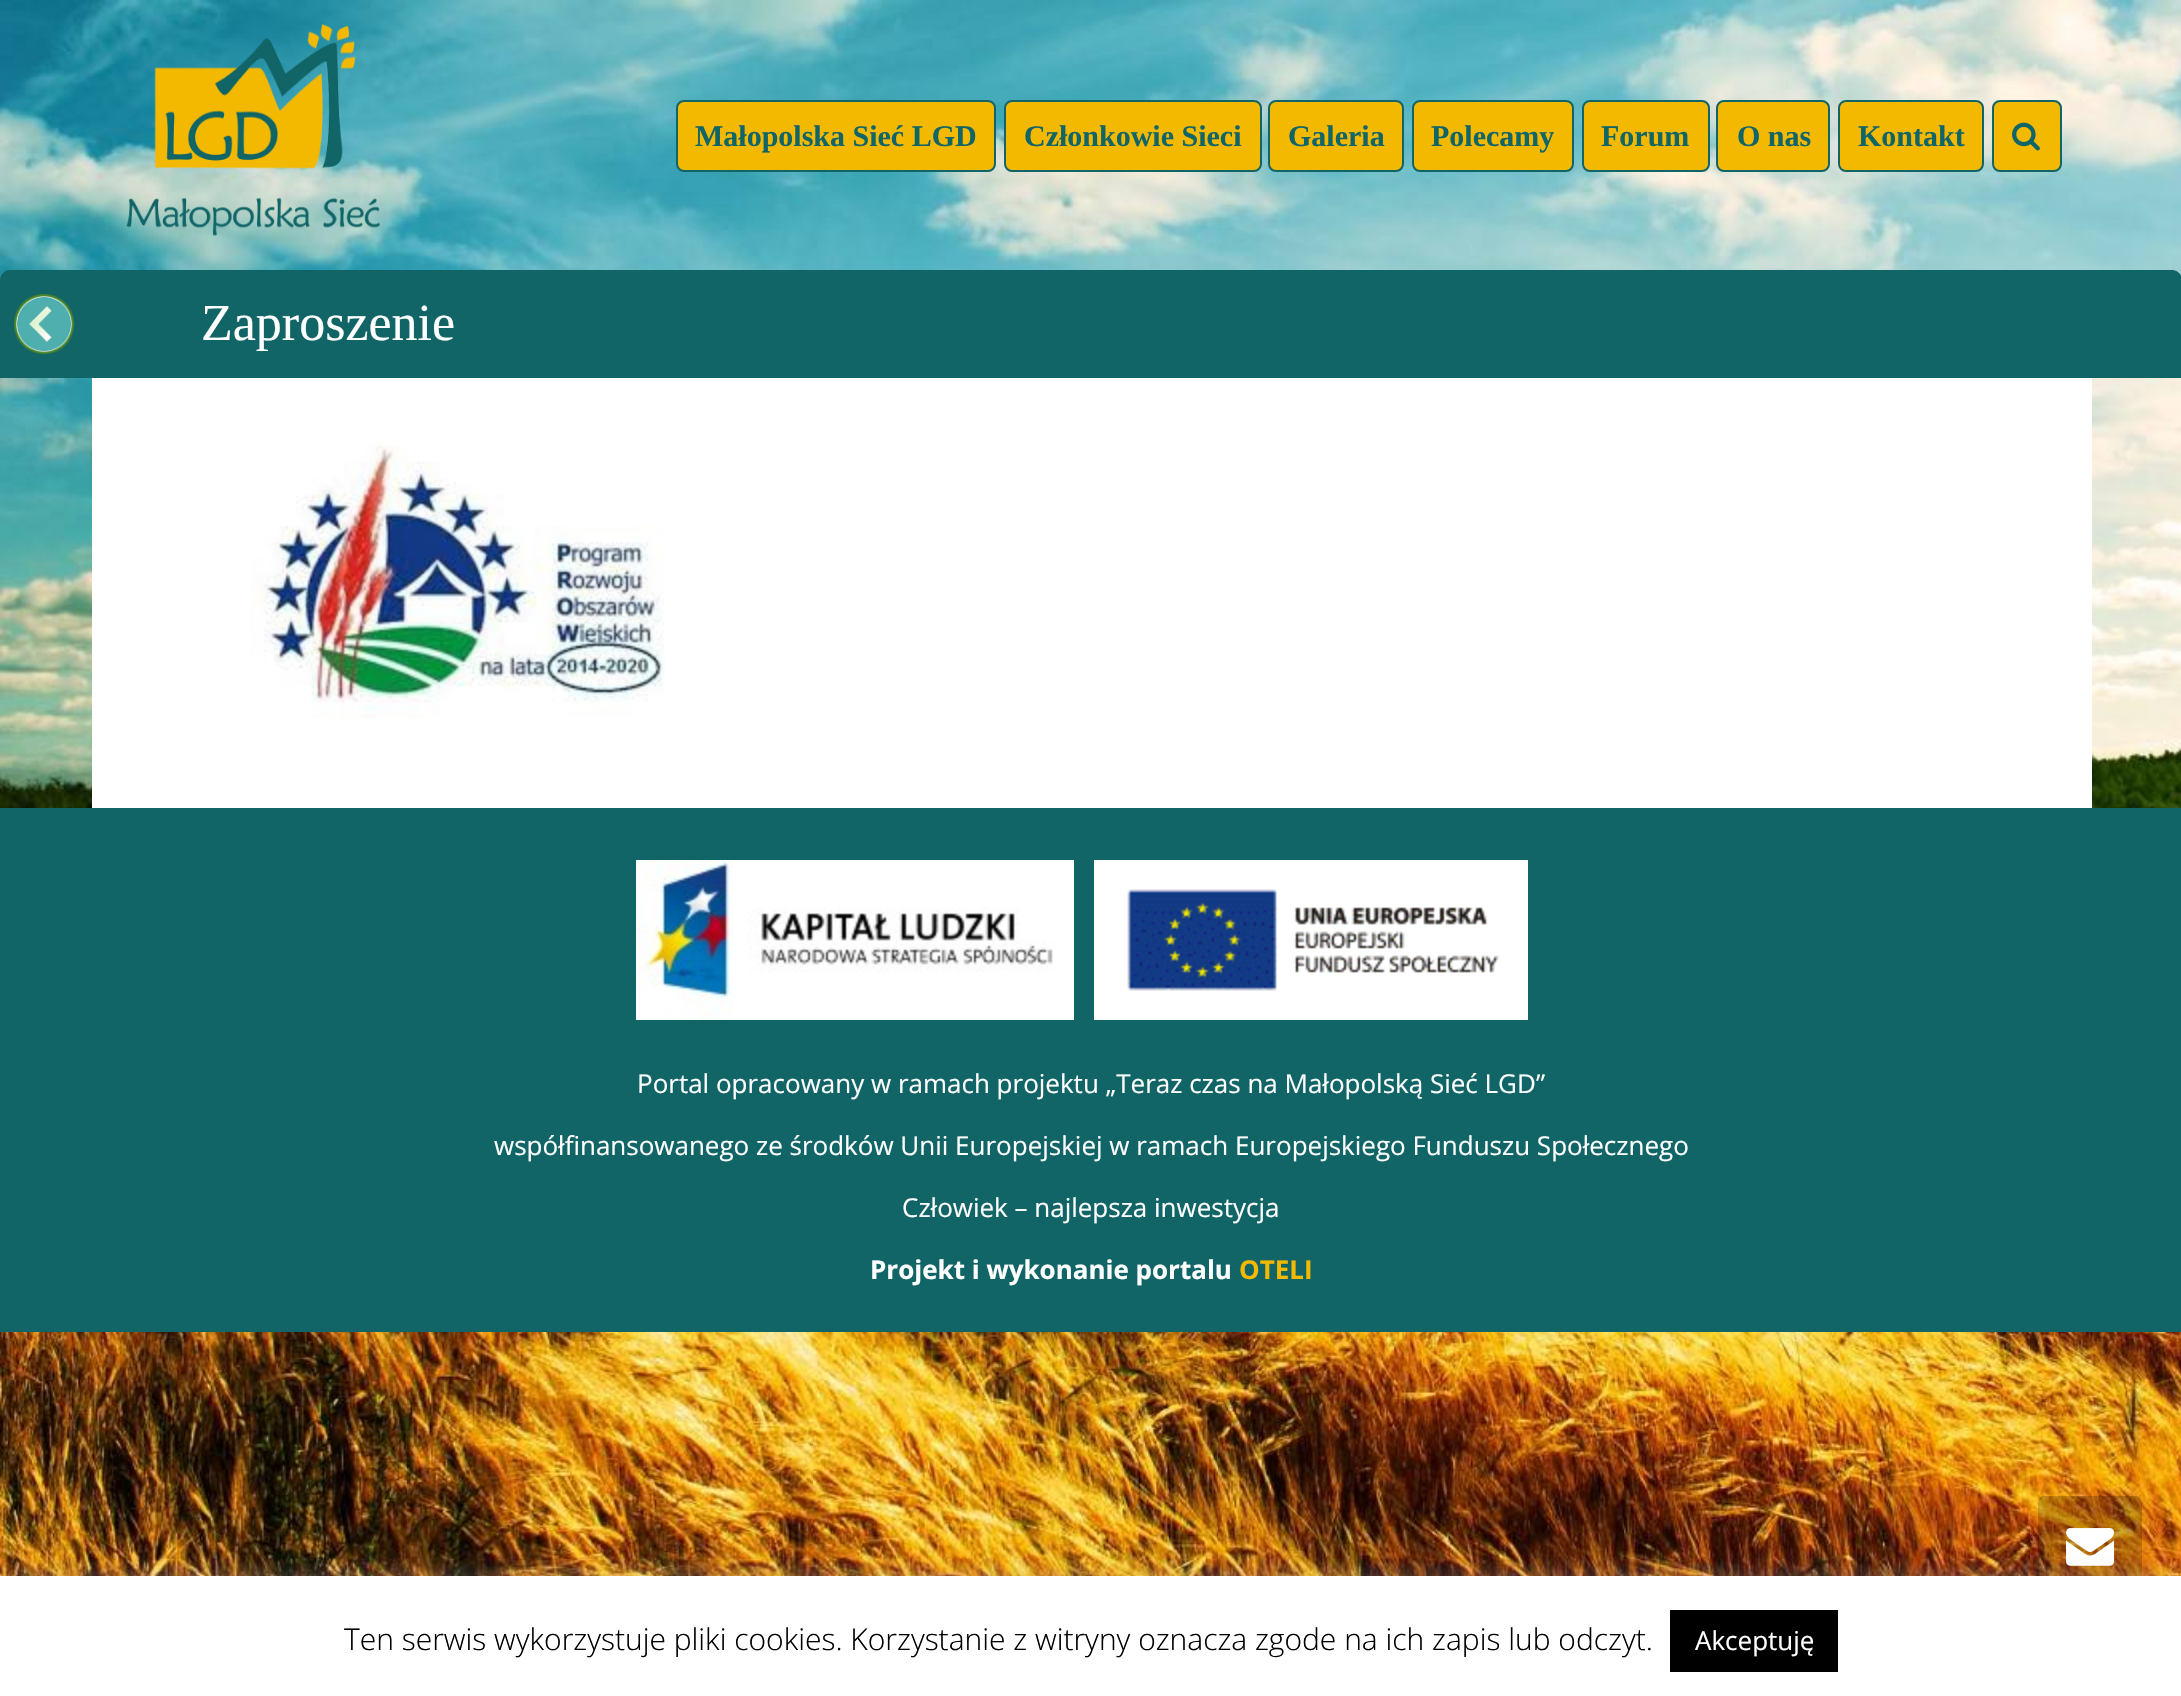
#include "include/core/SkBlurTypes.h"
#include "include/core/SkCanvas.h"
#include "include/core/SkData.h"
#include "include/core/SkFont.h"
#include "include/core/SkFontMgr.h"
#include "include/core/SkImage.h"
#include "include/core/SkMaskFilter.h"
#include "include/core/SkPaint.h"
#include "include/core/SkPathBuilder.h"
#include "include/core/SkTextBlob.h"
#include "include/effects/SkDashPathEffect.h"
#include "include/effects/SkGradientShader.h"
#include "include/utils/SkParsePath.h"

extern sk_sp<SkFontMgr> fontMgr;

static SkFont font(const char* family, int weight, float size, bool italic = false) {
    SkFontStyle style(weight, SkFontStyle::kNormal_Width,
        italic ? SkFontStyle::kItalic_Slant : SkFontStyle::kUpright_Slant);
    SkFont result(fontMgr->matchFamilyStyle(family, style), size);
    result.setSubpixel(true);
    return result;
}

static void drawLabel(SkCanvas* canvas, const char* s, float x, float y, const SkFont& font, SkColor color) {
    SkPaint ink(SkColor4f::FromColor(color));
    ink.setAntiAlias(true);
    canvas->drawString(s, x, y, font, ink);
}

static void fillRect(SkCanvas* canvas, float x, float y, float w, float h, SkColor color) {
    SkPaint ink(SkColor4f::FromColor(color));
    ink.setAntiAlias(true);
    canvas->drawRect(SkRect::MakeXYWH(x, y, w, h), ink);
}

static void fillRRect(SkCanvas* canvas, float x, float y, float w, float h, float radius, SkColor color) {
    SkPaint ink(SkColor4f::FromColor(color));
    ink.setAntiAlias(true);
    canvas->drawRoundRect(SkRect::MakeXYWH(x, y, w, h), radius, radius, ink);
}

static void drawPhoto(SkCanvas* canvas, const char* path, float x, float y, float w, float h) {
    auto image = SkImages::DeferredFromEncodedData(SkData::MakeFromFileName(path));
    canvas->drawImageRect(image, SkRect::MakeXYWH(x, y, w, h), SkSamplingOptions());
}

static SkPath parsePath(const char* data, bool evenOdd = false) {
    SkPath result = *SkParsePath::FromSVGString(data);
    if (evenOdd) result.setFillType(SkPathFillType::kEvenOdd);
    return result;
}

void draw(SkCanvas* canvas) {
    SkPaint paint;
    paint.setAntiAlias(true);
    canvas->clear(0xFFFFFFFF);
    drawPhoto(canvas, "assets/img1.png", 0, 0, 2181, 1576);
    drawPhoto(canvas, "assets/img2.png", 126, 23, 254, 213);
    paint.setColor(0xFFF3B900);
    canvas->drawRoundRect(SkRect::MakeXYWH(677, 101, 318, 70), 7, 7, paint);
    paint.setStroke(true);
    paint.setStrokeWidth(2);
    paint.setColor(0xFF126567);
    canvas->drawRoundRect(SkRect::MakeXYWH(677, 101, 318, 70), 7, 7, paint);
    SkFont font1 = font("Liberation Serif", 700, 30);
    drawLabel(canvas, "Małopolska Sieć LGD", 695, 146, font1, 0xFF126567);
    paint.setStroke(false);
    paint.setColor(0xFFF3B900);
    canvas->drawRoundRect(SkRect::MakeXYWH(1005, 101, 256, 70), 7, 7, paint);
    paint.setStroke(true);
    paint.setColor(0xFF126567);
    canvas->drawRoundRect(SkRect::MakeXYWH(1005, 101, 256, 70), 7, 7, paint);
    drawLabel(canvas, "Członkowie Sieci", 1024, 146, font1, 0xFF126567);
    paint.setStroke(false);
    paint.setColor(0xFFF3B900);
    canvas->drawRoundRect(SkRect::MakeXYWH(1269, 101, 134, 70), 7, 7, paint);
    paint.setStroke(true);
    paint.setColor(0xFF126567);
    canvas->drawRoundRect(SkRect::MakeXYWH(1269, 101, 134, 70), 7, 7, paint);
    drawLabel(canvas, "Galeria", 1288, 146, font1, 0xFF126567);
    paint.setStroke(false);
    paint.setColor(0xFFF3B900);
    canvas->drawRoundRect(SkRect::MakeXYWH(1413, 101, 160, 70), 7, 7, paint);
    paint.setStroke(true);
    paint.setColor(0xFF126567);
    canvas->drawRoundRect(SkRect::MakeXYWH(1413, 101, 160, 70), 7, 7, paint);
    drawLabel(canvas, "Polecamy", 1431, 146, font1, 0xFF126567);
    paint.setStroke(false);
    paint.setColor(0xFFF3B900);
    canvas->drawRoundRect(SkRect::MakeXYWH(1583, 101, 126, 70), 7, 7, paint);
    paint.setStroke(true);
    paint.setColor(0xFF126567);
    canvas->drawRoundRect(SkRect::MakeXYWH(1583, 101, 126, 70), 7, 7, paint);
    drawLabel(canvas, "Forum", 1601, 146, font1, 0xFF126567);
    paint.setStroke(false);
    paint.setColor(0xFFF3B900);
    canvas->drawRoundRect(SkRect::MakeXYWH(1717, 101, 112, 70), 7, 7, paint);
    paint.setStroke(true);
    paint.setColor(0xFF126567);
    canvas->drawRoundRect(SkRect::MakeXYWH(1717, 101, 112, 70), 7, 7, paint);
    drawLabel(canvas, "O nas", 1737, 146, font1, 0xFF126567);
    paint.setStroke(false);
    paint.setColor(0xFFF3B900);
    canvas->drawRoundRect(SkRect::MakeXYWH(1839, 101, 144, 70), 7, 7, paint);
    paint.setStroke(true);
    paint.setColor(0xFF126567);
    canvas->drawRoundRect(SkRect::MakeXYWH(1839, 101, 144, 70), 7, 7, paint);
    drawLabel(canvas, "Kontakt", 1858, 146, font1, 0xFF126567);
    paint.setStroke(false);
    paint.setColor(0xFFF3B900);
    canvas->drawRoundRect(SkRect::MakeXYWH(1993, 101, 68, 70), 7, 7, paint);
    paint.setStroke(true);
    paint.setColor(0xFF126567);
    canvas->drawRoundRect(SkRect::MakeXYWH(1993, 101, 68, 70), 7, 7, paint);
    drawPhoto(canvas, "assets/img3.png", 2012, 122, 28, 29);
    paint.setStroke(false);
    canvas->drawPath(parsePath("M10 270H2172C2177.5 270 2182 274.5 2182 280V378H0V280C0 274.5 4.5 270 10 270Z"), paint);
    drawPhoto(canvas, "assets/img4.png", 14, 294, 60, 60);
    SkFont font2 = font("Liberation Serif", 400, 52);
    drawLabel(canvas, "Zaproszenie", 201, 340, font2, 0xFFFFFFFF);
    fillRect(canvas, 92, 378, 2000, 430, 0xFFFFFFFF);
    drawPhoto(canvas, "assets/img5.png", 250, 441, 415, 277);
    fillRect(canvas, 0, 808, 2181, 524, 0xFF126567);
    drawPhoto(canvas, "assets/img6.png", 636, 860, 438, 160);
    drawPhoto(canvas, "assets/img7.png", 1094, 860, 434, 160);
    SkFont font3 = font("Open Sans", 400, 26);
    drawLabel(canvas, "Portal opracowany w ramach projektu „Teraz czas na Małopolską Sieć LGD”", 637, 1093, font3, 0xFFFFFFFF);
    drawLabel(canvas, "współfinansowanego ze środków Unii Europejskiej w ramach Europejskiego Funduszu Społecznego", 494, 1155, font3, 0xFFFFFFFF);
    drawLabel(canvas, "Człowiek – najlepsza inwestycja", 902, 1217, font3, 0xFFFFFFFF);
    SkFont font4 = font("Open Sans", 700, 26);
    drawLabel(canvas, "Projekt i wykonanie portalu", 870, 1279, font4, 0xFFFFFFFF);
    drawLabel(canvas, "OTELI", 1239, 1279, font4, 0xFFF3B900);
    fillRRect(canvas, 2038, 1496, 104, 100, 6, 0x33000000);
    drawPhoto(canvas, "assets/img8.png", 2066, 1528, 49, 38);
    paint.setColor(0x4DACABAB);
    paint.setMaskFilter(SkMaskFilter::MakeBlur(kNormal_SkBlurStyle, 10));
    canvas->drawRect(SkRect::MakeXYWH(0, 1574, 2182, 120), paint);
    paint.setMaskFilter(nullptr);
    fillRect(canvas, 0, 1576, 2181, 120, 0xFFFFFFFF);
    SkFont font5 = font("Open Sans", 300, 30);
    drawLabel(canvas, "Ten serwis wykorzystuje pliki cookies. Korzystanie z witryny oznacza zgode na ich zapis lub odczyt.", 344, 1650, font5, 0xFF000000);
    fillRect(canvas, 1670, 1610, 168, 62, 0xFF000000);
    drawLabel(canvas, "Akceptuję", 1695, 1650, font3, 0xFFFFFFFF);
}
